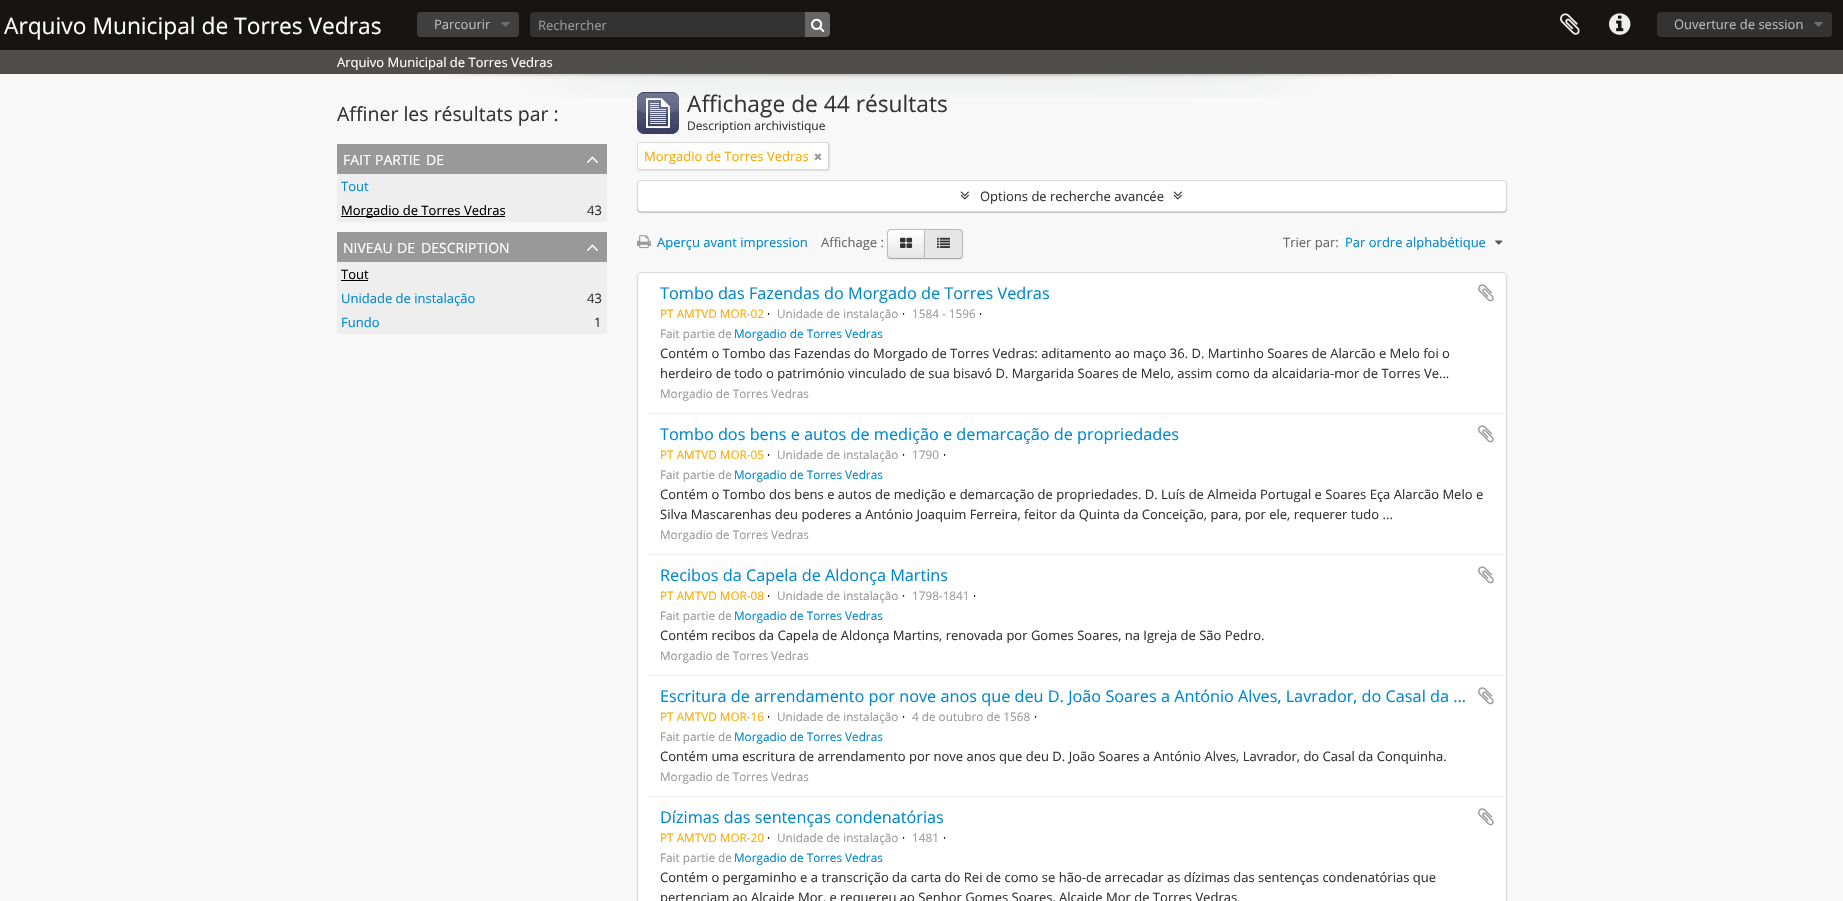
#include "include/core/SkBlurTypes.h"
#include "include/core/SkCanvas.h"
#include "include/core/SkData.h"
#include "include/core/SkFont.h"
#include "include/core/SkFontMgr.h"
#include "include/core/SkImage.h"
#include "include/core/SkMaskFilter.h"
#include "include/core/SkPaint.h"
#include "include/core/SkPathBuilder.h"
#include "include/core/SkTextBlob.h"
#include "include/effects/SkDashPathEffect.h"
#include "include/effects/SkGradientShader.h"
#include "include/utils/SkParsePath.h"

extern sk_sp<SkFontMgr> fontMgr;

static SkFont font(const char* family, int weight, float size, bool italic = false) {
    SkFontStyle style(weight, SkFontStyle::kNormal_Width,
        italic ? SkFontStyle::kItalic_Slant : SkFontStyle::kUpright_Slant);
    SkFont result(fontMgr->matchFamilyStyle(family, style), size);
    result.setSubpixel(true);
    return result;
}

static void drawLabel(SkCanvas* canvas, const char* s, float x, float y, const SkFont& font, SkColor color) {
    SkPaint ink(SkColor4f::FromColor(color));
    ink.setAntiAlias(true);
    canvas->drawString(s, x, y, font, ink);
}

static void fillRect(SkCanvas* canvas, float x, float y, float w, float h, SkColor color) {
    SkPaint ink(SkColor4f::FromColor(color));
    ink.setAntiAlias(true);
    canvas->drawRect(SkRect::MakeXYWH(x, y, w, h), ink);
}

static void fillRRect(SkCanvas* canvas, float x, float y, float w, float h, float radius, SkColor color) {
    SkPaint ink(SkColor4f::FromColor(color));
    ink.setAntiAlias(true);
    canvas->drawRoundRect(SkRect::MakeXYWH(x, y, w, h), radius, radius, ink);
}

static void drawPhoto(SkCanvas* canvas, const char* path, float x, float y, float w, float h) {
    auto image = SkImages::DeferredFromEncodedData(SkData::MakeFromFileName(path));
    canvas->drawImageRect(image, SkRect::MakeXYWH(x, y, w, h), SkSamplingOptions());
}

static SkPath parsePath(const char* data, bool evenOdd = false) {
    SkPath result = *SkParsePath::FromSVGString(data);
    if (evenOdd) result.setFillType(SkPathFillType::kEvenOdd);
    return result;
}

void draw(SkCanvas* canvas) {
    SkPaint paint;
    paint.setAntiAlias(true);
    canvas->clear(0xFFF8F8F8);
    fillRect(canvas, 0, 0, 1843, 50, 0xFF161514);
    SkFont font1 = font("Open Sans", 400, 22.75f);
    drawLabel(canvas, "Arquivo Municipal de Torres Vedras", 4, 34, font1, 0xFFFFFFFF);
    fillRRect(canvas, 417, 12, 102, 25, 4, 0xFF404040);
    drawPhoto(canvas, "assets/img1.png", 501, 22, 9, 5);
    SkFont font2 = font("Open Sans", 400, 13);
    drawLabel(canvas, "Parcourir", 434, 29, font2, 0xFFBBBBBB);
    fillRRect(canvas, 530, 12, 300, 25, 4, 0xFF333333);
    paint.setColor(0x12000000);
    canvas->drawPath(parsePath("M534 13H828C829 13 830 14 830 16C830 14 828 12 826 12H534C531 12 530 14 530 16C530 14 532 13 534 13Z"), paint);
    drawLabel(canvas, "Rechercher", 538, 30, font2, 0xFF999999);
    paint.setColor(0xFF666666);
    canvas->drawPath(parsePath("M805 12H826C828 12 830 14 830 16V33C830 35 828 37 826 37H805Z"), paint);
    drawPhoto(canvas, "assets/img2.png", 811, 18, 14, 14);
    drawPhoto(canvas, "assets/img3.png", 1560, 13, 20, 22);
    drawPhoto(canvas, "assets/img4.png", 1609, 13, 22, 22);
    fillRRect(canvas, 1657, 12, 175, 25, 4, 0xFF333333);
    drawPhoto(canvas, "assets/img5.png", 1814, 22, 9, 5);
    drawLabel(canvas, "Ouverture de session", 1674, 29, font2, 0xFFBBBBBB);
    fillRect(canvas, 0, 50, 1843, 24, 0xFF4F4E4D);
    drawLabel(canvas, "Arquivo Municipal de Torres Vedras", 337, 67, font2, 0xFFFFFFFF);
    drawPhoto(canvas, "assets/img6.png", 448, 74, 946, 23);
    SkFont font3 = font("Open Sans", 400, 19.5f);
    drawLabel(canvas, "Affiner les résultats par :", 337, 121, font3, 0xFF333333);
    fillRect(canvas, 337, 144, 270, 30, 0xFF999999);
    SkFont font4 = font("Open Sans", 400, 14);
    drawLabel(canvas, "FAIT", 343, 165, font4, 0xFFFFFFFF);
    drawLabel(canvas, "PARTIE", 375, 165, font4, 0xFFFFFFFF);
    drawLabel(canvas, "DE", 426, 165, font4, 0xFFFFFFFF);
    drawPhoto(canvas, "assets/img7.png", 587, 156, 11, 7);
    fillRect(canvas, 337, 174, 270, 48, 0xFFEEEEEE);
    drawLabel(canvas, "Tout", 341, 191, font2, 0xFF0088CC);
    fillRect(canvas, 341, 216, 164, 1, 0xFF000000);
    drawLabel(canvas, "Morgadio de Torres Vedras", 341, 215, font2, 0xFF000000);
    drawLabel(canvas, "43", 587, 215, font2, 0xFF333333);
    fillRect(canvas, 337, 232, 270, 30, 0xFF999999);
    drawLabel(canvas, "NIVEAU", 343, 253, font4, 0xFFFFFFFF);
    drawLabel(canvas, "DE", 397, 253, font4, 0xFFFFFFFF);
    drawLabel(canvas, "DESCRIPTION", 421, 253, font4, 0xFFFFFFFF);
    drawPhoto(canvas, "assets/img7.png", 587, 244, 11, 7);
    fillRect(canvas, 337, 262, 270, 72, 0xFFEEEEEE);
    drawLabel(canvas, "Tout", 341, 279, font2, 0xFF000000);
    fillRect(canvas, 341, 280, 27, 1, 0xFF000000);
    drawLabel(canvas, "Unidade de instalação", 341, 303, font2, 0xFF0088CC);
    drawLabel(canvas, "43", 587, 303, font2, 0xFF333333);
    drawLabel(canvas, "Fundo", 341, 327, font2, 0xFF0088CC);
    drawLabel(canvas, "1", 594, 327, font2, 0xFF333333);
    drawPhoto(canvas, "assets/img8.png", 637, 92, 42, 42);
    drawLabel(canvas, "Affichage de 44 résultats", 687, 112, font1, 0xFF333333);
    SkFont font5 = font("Open Sans", 400, 12);
    drawLabel(canvas, "Description archivistique", 687, 130, font5, 0xFF333333);
    paint.setColor(0x1A000000);
    paint.setMaskFilter(SkMaskFilter::MakeBlur(kNormal_SkBlurStyle, 0.5f));
    canvas->drawRoundRect(SkRect::MakeXYWH(638, 143, 192, 28), 2, 2, paint);
    paint.setMaskFilter(nullptr);
    paint.setColor(0xFFFFFFFF);
    canvas->drawRoundRect(SkRect::MakeXYWH(637.5f, 142.5f, 191, 27), 1.5f, 1.5f, paint);
    paint.setStroke(true);
    paint.setStrokeWidth(1);
    paint.setColor(0xFFD9D9D9);
    canvas->drawRoundRect(SkRect::MakeXYWH(637.5f, 142.5f, 191, 27), 1.5f, 1.5f, paint);
    drawLabel(canvas, "Morgadio de Torres Vedras", 644, 161, font2, 0xFFF6AC00);
    drawPhoto(canvas, "assets/img9.png", 814, 153, 8, 7);
    paint.setStroke(false);
    paint.setColor(0x33000000);
    paint.setMaskFilter(SkMaskFilter::MakeBlur(kNormal_SkBlurStyle, 0.5f));
    canvas->drawRoundRect(SkRect::MakeXYWH(637, 181, 870, 32), 4, 4, paint);
    paint.setMaskFilter(nullptr);
    paint.setColor(0xFFFFFFFF);
    canvas->drawRoundRect(SkRect::MakeXYWH(637.5f, 180.5f, 869, 31), 3.5f, 3.5f, paint);
    paint.setStroke(true);
    paint.setColor(0xFFD9D9D9);
    canvas->drawRoundRect(SkRect::MakeXYWH(637.5f, 180.5f, 869, 31), 3.5f, 3.5f, paint);
    drawPhoto(canvas, "assets/img10.png", 960, 191, 9, 9);
    drawLabel(canvas, "Options de recherche avancée", 980, 201, font2, 0xFF333333);
    drawPhoto(canvas, "assets/img10.png", 1173, 191, 9, 9);
    drawPhoto(canvas, "assets/img11.png", 637, 235, 14, 14);
    drawLabel(canvas, "Aperçu avant impression", 657, 247, font2, 0xFF0088CC);
    drawLabel(canvas, "Affichage :", 821, 247, font2, 0xFF666666);
    paint.setStroke(false);
    paint.setColor(0x0D000000);
    paint.setMaskFilter(SkMaskFilter::MakeBlur(kNormal_SkBlurStyle, 1));
    canvas->drawRoundRect(SkRect::MakeXYWH(887, 230, 38, 30), 4, 4, paint);
    paint.setMaskFilter(nullptr);
    canvas->save();
    canvas->clipPath(parsePath("M891 229H925V259H891C889 259 887 257 887 255V233C887 231 889 229 891 229Z"), true);
    {
        const SkColor colors[] = {0xFFFFFFFF, 0xFFE6E6E6};
        const float stops[] = {0, 1};
        const SkPoint ends[] = {{906, 230}, {906, 258}};
        paint.setShader(SkGradientShader::MakeLinear(ends, colors, stops, 2, SkTileMode::kClamp));
        paint.setAlpha(255);
    }
    canvas->drawRect(SkRect::MakeXYWH(887, 230, 37, 28), paint);
    canvas->restore();
    paint.setShader(nullptr);
    paint.setColor(0xFFBBBBBB);
    canvas->drawPath(parsePath("M891 229C890 229 889 229.5 888 230L889 231C889.5 230.5 890 230 891 230H924L925 229Z"), paint);
    paint.setColor(0xFFA2A2A2);
    canvas->drawPath(parsePath("M925 259L924 258H891C890 258 889.5 257.5 889 257L888 258C889 258.5 890 259 891 259Z"), paint);
    paint.setColor(0xFFBBBBBB);
    canvas->drawPath(parsePath("M887 233V255C887 256 887.5 257 888 258L889 257C888.5 256.5 888 256 888 255V233C888 232 888.5 231.5 889 231L888 230C887.5 231 887 232 887 233Z"), paint);
    drawPhoto(canvas, "assets/img12.png", 900, 237, 13, 11);
    paint.setColor(0x0D000000);
    paint.setMaskFilter(SkMaskFilter::MakeBlur(kNormal_SkBlurStyle, 1));
    canvas->drawRoundRect(SkRect::MakeXYWH(924, 230, 39, 30), 4, 4, paint);
    paint.setMaskFilter(nullptr);
    paint.setColor(0xFFE6E6E6);
    canvas->drawPath(parsePath("M924 229H959C961 229 963 231 963 233V255C963 257 961 259 959 259H924Z"), paint);
    paint.setColor(0xFFBBBBBB);
    canvas->drawPath(parsePath("M924 229L925 230H959C960 230 960.5 230.5 961 231L962 230C961 229.5 960 229 959 229Z"), paint);
    canvas->drawPath(parsePath("M963 255V233C963 232 962.5 231 962 230L961 231C961.5 231.5 962 232 962 233V255C962 256 961.5 256.5 961 257L962 258C962.5 257 963 256 963 255Z"), paint);
    paint.setColor(0xFFA2A2A2);
    canvas->drawPath(parsePath("M959 259C960 259 961 258.5 962 258L961 257C960.5 257.5 960 258 959 258H925L924 259Z"), paint);
    paint.setColor(0xFFBBBBBB);
    canvas->drawPath(parsePath("M924 229V259L925 258V230Z"), paint);
    drawPhoto(canvas, "assets/img13.png", 937, 237, 13, 11);
    drawLabel(canvas, "Trier par:", 1283, 247, font2, 0xFF666666);
    drawLabel(canvas, "Par ordre alphabétique", 1345, 247, font2, 0xFF0088CC);
    drawPhoto(canvas, "assets/img14.png", 1495, 240, 8, 5);
    paint.setColor(0x33000000);
    paint.setMaskFilter(SkMaskFilter::MakeBlur(kNormal_SkBlurStyle, 0.5f));
    canvas->drawRoundRect(SkRect::MakeXYWH(637, 273, 870, 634), 4, 4, paint);
    paint.setMaskFilter(nullptr);
    paint.setColor(0xFFFFFFFF);
    canvas->drawRoundRect(SkRect::MakeXYWH(637.5f, 272.5f, 869, 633), 3.5f, 3.5f, paint);
    paint.setStroke(true);
    paint.setColor(0xFFD9D9D9);
    canvas->drawRoundRect(SkRect::MakeXYWH(637.5f, 272.5f, 869, 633), 3.5f, 3.5f, paint);
    fillRect(canvas, 650, 413, 856, 1, 0xFFEEEEEE);
    SkFont font6 = font("Open Sans", 400, 16.25f);
    drawLabel(canvas, "Tombo das Fazendas do Morgado de Torres Vedras", 660, 299, font6, 0xFF0088CC);
    drawPhoto(canvas, "assets/img15.png", 1478, 284, 16, 18);
    SkFont font7 = font("Open Sans", 400, 11.75f);
    drawLabel(canvas, "PT AMTVD MOR-02", 660, 318, font7, 0xFFF6AC00);
    drawLabel(canvas, "·", 767, 318, font7, 0xFF000000);
    drawLabel(canvas, "Unidade de instalação", 777, 318, font7, 0xFF999999);
    drawLabel(canvas, "·", 902, 318, font7, 0xFF000000);
    drawLabel(canvas, "1584 - 1596", 912, 318, font7, 0xFF999999);
    drawLabel(canvas, "·", 979, 318, font7, 0xFF000000);
    drawLabel(canvas, "Fait partie de", 660, 338, font7, 0xFF999999);
    drawLabel(canvas, "Morgadio de Torres Vedras", 734, 338, font7, 0xFF0088CC);
    drawLabel(canvas, "Contém o Tombo das Fazendas do Morgado de Torres Vedras: aditamento ao maço 36. D. Martinho Soares de Alarcão e Melo foi o", 660, 358, font2, 0xFF333333);
    drawLabel(canvas, "herdeiro de todo o património vinculado de sua bisavó D. Margarida Soares de Melo, assim como da alcaidaria-mor de Torres Ve...", 660, 378, font2, 0xFF333333);
    drawLabel(canvas, "Morgadio de Torres Vedras", 660, 398, font7, 0xFF999999);
    fillRect(canvas, 650, 554, 856, 1, 0xFFEEEEEE);
    drawLabel(canvas, "Tombo dos bens e autos de medição e demarcação de propriedades", 660, 440, font6, 0xFF0088CC);
    drawPhoto(canvas, "assets/img15.png", 1478, 425, 16, 18);
    drawLabel(canvas, "PT AMTVD MOR-05", 660, 459, font7, 0xFFF6AC00);
    drawLabel(canvas, "·", 767, 459, font7, 0xFF000000);
    drawLabel(canvas, "Unidade de instalação", 777, 459, font7, 0xFF999999);
    drawLabel(canvas, "·", 902, 459, font7, 0xFF000000);
    drawLabel(canvas, "1790", 912, 459, font7, 0xFF999999);
    drawLabel(canvas, "·", 943, 459, font7, 0xFF000000);
    drawLabel(canvas, "Fait partie de", 660, 479, font7, 0xFF999999);
    drawLabel(canvas, "Morgadio de Torres Vedras", 734, 479, font7, 0xFF0088CC);
    drawLabel(canvas, "Contém o Tombo dos bens e autos de medição e demarcação de propriedades. D. Luís de Almeida Portugal e Soares Eça Alarcão Melo e", 660, 499, font2, 0xFF333333);
    drawLabel(canvas, "Silva Mascarenhas deu poderes a António Joaquim Ferreira, feitor da Quinta da Conceição, para, por ele, requerer tudo ...", 660, 519, font2, 0xFF333333);
    drawLabel(canvas, "Morgadio de Torres Vedras", 660, 539, font7, 0xFF999999);
    fillRect(canvas, 650, 675, 856, 1, 0xFFEEEEEE);
    drawLabel(canvas, "Recibos da Capela de Aldonça Martins", 660, 581, font6, 0xFF0088CC);
    drawPhoto(canvas, "assets/img15.png", 1478, 566, 16, 18);
    drawLabel(canvas, "PT AMTVD MOR-08", 660, 600, font7, 0xFFF6AC00);
    drawLabel(canvas, "·", 767, 600, font7, 0xFF000000);
    drawLabel(canvas, "Unidade de instalação", 777, 600, font7, 0xFF999999);
    drawLabel(canvas, "·", 902, 600, font7, 0xFF000000);
    drawLabel(canvas, "1798-1841", 912, 600, font7, 0xFF999999);
    drawLabel(canvas, "·", 973, 600, font7, 0xFF000000);
    drawLabel(canvas, "Fait partie de", 660, 620, font7, 0xFF999999);
    drawLabel(canvas, "Morgadio de Torres Vedras", 734, 620, font7, 0xFF0088CC);
    drawLabel(canvas, "Contém recibos da Capela de Aldonça Martins, renovada por Gomes Soares, na Igreja de São Pedro.", 660, 640, font2, 0xFF333333);
    drawLabel(canvas, "Morgadio de Torres Vedras", 660, 660, font7, 0xFF999999);
    fillRect(canvas, 650, 796, 856, 1, 0xFFEEEEEE);
    drawLabel(canvas, "Escritura de arrendamento por nove anos que deu D. João Soares a António Alves, Lavrador, do Casal da …", 660, 702, font6, 0xFF0088CC);
    drawPhoto(canvas, "assets/img15.png", 1478, 687, 16, 18);
    drawLabel(canvas, "PT AMTVD MOR-16", 660, 721, font7, 0xFFF6AC00);
    drawLabel(canvas, "·", 767, 721, font7, 0xFF000000);
    drawLabel(canvas, "Unidade de instalação", 777, 721, font7, 0xFF999999);
    drawLabel(canvas, "·", 902, 721, font7, 0xFF000000);
    drawLabel(canvas, "4 de outubro de 1568", 912, 721, font7, 0xFF999999);
    drawLabel(canvas, "·", 1034, 721, font7, 0xFF000000);
    drawLabel(canvas, "Fait partie de", 660, 741, font7, 0xFF999999);
    drawLabel(canvas, "Morgadio de Torres Vedras", 734, 741, font7, 0xFF0088CC);
    drawLabel(canvas, "Contém uma escritura de arrendamento por nove anos que deu D. João Soares a António Alves, Lavrador, do Casal da Conquinha.", 660, 761, font2, 0xFF333333);
    drawLabel(canvas, "Morgadio de Torres Vedras", 660, 781, font7, 0xFF999999);
    drawLabel(canvas, "Dízimas das sentenças condenatórias", 660, 823, font6, 0xFF0088CC);
    drawPhoto(canvas, "assets/img15.png", 1478, 808, 16, 18);
    drawLabel(canvas, "PT AMTVD MOR-20", 660, 842, font7, 0xFFF6AC00);
    drawLabel(canvas, "·", 767, 842, font7, 0xFF000000);
    drawLabel(canvas, "Unidade de instalação", 777, 842, font7, 0xFF999999);
    drawLabel(canvas, "·", 902, 842, font7, 0xFF000000);
    drawLabel(canvas, "1481", 912, 842, font7, 0xFF999999);
    drawLabel(canvas, "·", 943, 842, font7, 0xFF000000);
    drawLabel(canvas, "Fait partie de", 660, 862, font7, 0xFF999999);
    drawLabel(canvas, "Morgadio de Torres Vedras", 734, 862, font7, 0xFF0088CC);
    drawLabel(canvas, "Contém o pergaminho e a transcrição da carta do Rei de como se hão-de arrecadar as dízimas das sentenças condenatórias que", 660, 882, font2, 0xFF333333);
    drawLabel(canvas, "pertenciam ao Alcaide Mor, e requereu ao Senhor Gomes Soares, Alcaide Mor de Torres Vedras.", 660, 902, font2, 0xFF333333);
}
